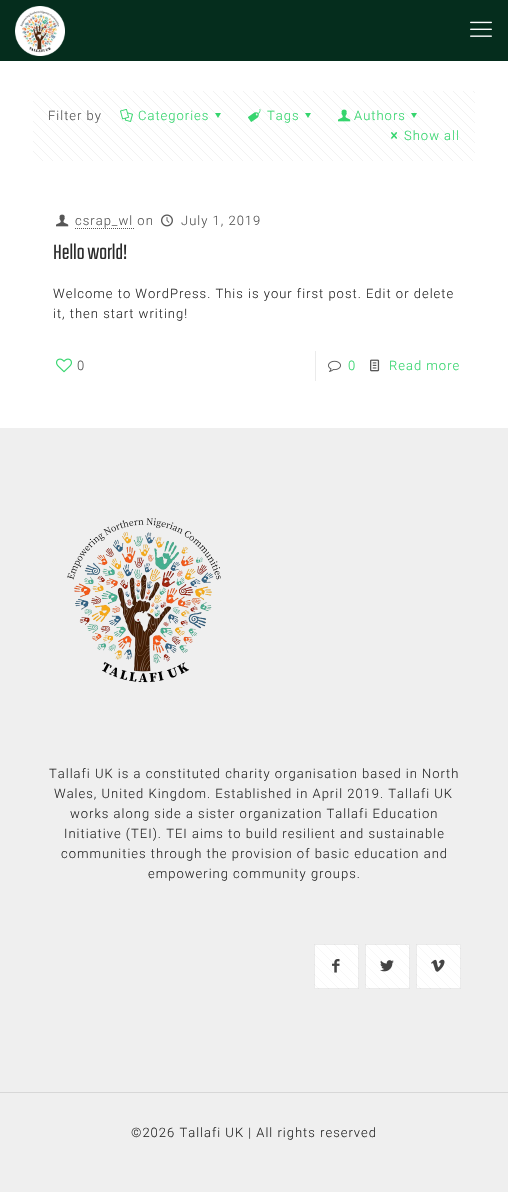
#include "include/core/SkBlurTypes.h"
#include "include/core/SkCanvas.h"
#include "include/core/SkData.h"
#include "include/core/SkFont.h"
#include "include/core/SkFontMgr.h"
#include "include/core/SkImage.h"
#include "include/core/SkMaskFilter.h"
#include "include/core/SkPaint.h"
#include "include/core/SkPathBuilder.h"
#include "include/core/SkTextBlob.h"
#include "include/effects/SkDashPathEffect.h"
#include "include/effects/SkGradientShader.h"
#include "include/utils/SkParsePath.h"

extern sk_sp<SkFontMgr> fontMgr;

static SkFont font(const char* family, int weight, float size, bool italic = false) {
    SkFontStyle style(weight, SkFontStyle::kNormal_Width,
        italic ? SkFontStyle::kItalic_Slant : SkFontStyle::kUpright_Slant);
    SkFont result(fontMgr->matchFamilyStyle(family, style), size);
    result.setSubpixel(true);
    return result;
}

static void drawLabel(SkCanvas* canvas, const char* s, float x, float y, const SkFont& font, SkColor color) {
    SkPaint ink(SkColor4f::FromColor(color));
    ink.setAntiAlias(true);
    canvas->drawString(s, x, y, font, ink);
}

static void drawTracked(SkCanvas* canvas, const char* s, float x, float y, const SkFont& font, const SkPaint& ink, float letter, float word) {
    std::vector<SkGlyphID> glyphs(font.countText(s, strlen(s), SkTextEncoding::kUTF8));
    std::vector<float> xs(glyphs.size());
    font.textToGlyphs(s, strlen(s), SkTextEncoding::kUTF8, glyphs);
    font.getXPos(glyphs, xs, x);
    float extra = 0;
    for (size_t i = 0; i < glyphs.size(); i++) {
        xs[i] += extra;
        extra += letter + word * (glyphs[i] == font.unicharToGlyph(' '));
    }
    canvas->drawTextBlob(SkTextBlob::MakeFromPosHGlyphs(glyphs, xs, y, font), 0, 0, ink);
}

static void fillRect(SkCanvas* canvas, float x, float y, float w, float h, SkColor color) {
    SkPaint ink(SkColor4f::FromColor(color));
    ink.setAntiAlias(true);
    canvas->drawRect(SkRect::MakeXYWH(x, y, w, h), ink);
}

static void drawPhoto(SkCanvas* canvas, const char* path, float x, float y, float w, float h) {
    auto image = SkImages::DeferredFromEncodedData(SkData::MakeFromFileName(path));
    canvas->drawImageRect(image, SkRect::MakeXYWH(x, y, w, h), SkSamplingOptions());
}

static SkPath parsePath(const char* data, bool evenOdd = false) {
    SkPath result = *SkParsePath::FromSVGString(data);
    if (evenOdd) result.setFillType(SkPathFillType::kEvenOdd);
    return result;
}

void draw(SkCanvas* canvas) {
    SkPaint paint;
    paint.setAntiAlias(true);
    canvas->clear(0xFFFFFFFF);
    fillRect(canvas, 0, 0, 508, 61, 0xFF052D1D);
    drawPhoto(canvas, "assets/img1.png", 15, 6, 50, 50);
    drawPhoto(canvas, "assets/img2.png", 470, 21, 22, 16);
    drawPhoto(canvas, "assets/img3.png", 33, 91, 442, 70);
    SkFont font1 = font("Roboto", 300, 13);
    paint.setColor(0xFF565656);
    drawTracked(canvas, "Filter by", 48, 120, font1, paint, 1, 0);
    drawPhoto(canvas, "assets/img4.png", 120, 109, 13, 13);
    paint.setColor(0xFF36D56E);
    drawTracked(canvas, "Categories", 138, 120, font1, paint, 1, 0);
    canvas->drawPath(parsePath("M221 113L218 118L215 113Z"), paint);
    drawPhoto(canvas, "assets/img5.png", 248, 109, 13, 13);
    drawTracked(canvas, "Tags", 267, 120, font1, paint, 1, 0);
    canvas->drawPath(parsePath("M311 113L308 118L305 113Z"), paint);
    drawPhoto(canvas, "assets/img6.png", 338, 109, 13, 13);
    drawTracked(canvas, "Authors", 354, 120, font1, paint, 1, 0);
    canvas->drawPath(parsePath("M417 113L414 118L411 113Z"), paint);
    drawPhoto(canvas, "assets/img7.png", 391, 132, 7, 7);
    drawTracked(canvas, "Show all", 404, 140, font1, paint, 1, 0);
    drawPhoto(canvas, "assets/img8.png", 56, 214, 13, 13);
    paint.setColor(0xFF565656);
    drawTracked(canvas, "csrap_wl on", 75, 225, font1, paint, 1, 0);
    paint.setStroke(true);
    paint.setStrokeWidth(1);
    paint.setPathEffect(SkDashPathEffect::Make({{1, 1}}, 0));
    canvas->drawPath(parsePath("M75 228.5H134"), paint);
    paint.setPathEffect(nullptr);
    drawPhoto(canvas, "assets/img9.png", 161, 214, 12, 13);
    paint.setStroke(false);
    drawTracked(canvas, "July 1, 2019", 181, 225, font1, paint, 1, 0);
    SkFont font2 = font("Teko", 300, 23);
    drawLabel(canvas, "Hello world!", 53, 259, font2, 0xFF2B2B2B);
    paint.setColor(0xFF2B2B2B);
    drawTracked(canvas, "Welcome to WordPress. This is your first post. Edit or delete", 53, 298, font1, paint, 1, 0);
    drawTracked(canvas, "it, then start writing!", 53, 318, font1, paint, 1, 0);
    drawPhoto(canvas, "assets/img10.png", 56, 358, 16, 15);
    paint.setColor(0xFF565656);
    drawTracked(canvas, "0", 77, 370, font1, paint, 1, 0);
    fillRect(canvas, 315, 351, 1, 30, 0xFFEBEBEB);
    drawPhoto(canvas, "assets/img11.png", 328, 360, 13, 12);
    paint.setColor(0xFF36D56E);
    drawTracked(canvas, "0", 348, 370, font1, paint, 1, 0);
    drawPhoto(canvas, "assets/img12.png", 370, 359, 10, 13);
    drawTracked(canvas, "Read more", 389, 370, font1, paint, 1, 0);
    fillRect(canvas, 0, 428, 508, 764, 0xFFEFEFEF);
    drawPhoto(canvas, "assets/img13.png", 67, 518, 154, 165);
    paint.setColor(0xFF2B2B2B);
    drawTracked(canvas, "Tallafi UK is a constituted charity organisation based in North", 49, 778, font1, paint, 1, 0);
    drawTracked(canvas, "Wales, United Kingdom. Established in April 2019. Tallafi UK", 54, 798, font1, paint, 1, 0);
    drawTracked(canvas, "works along side a sister organization Tallafi Education", 70, 818, font1, paint, 1, 0);
    drawTracked(canvas, "Initiative (TEI). TEI aims to build resilient and sustainable", 64, 838, font1, paint, 1, 0);
    drawTracked(canvas, "communities through the provision of basic education and", 61, 858, font1, paint, 1, 0);
    drawTracked(canvas, "empowering community groups.", 148, 878, font1, paint, 1, 0);
    fillRect(canvas, 314, 944, 45, 45, 0xFFFFFFFF);
    drawPhoto(canvas, "assets/img14.png", 314, 944, 45, 45);
    paint.setStroke(true);
    paint.setColor(0x14000000);
    canvas->drawRect(SkRect::MakeXYWH(314.5f, 944.5f, 44, 44), paint);
    drawPhoto(canvas, "assets/img15.png", 332, 959, 8, 14);
    fillRect(canvas, 365, 944, 45, 45, 0xFFFFFFFF);
    drawPhoto(canvas, "assets/img14.png", 365, 944, 45, 45);
    canvas->drawRect(SkRect::MakeXYWH(365.5f, 944.5f, 44, 44), paint);
    drawPhoto(canvas, "assets/img16.png", 380, 960, 14, 12);
    fillRect(canvas, 416, 944, 45, 45, 0xFFFFFFFF);
    drawPhoto(canvas, "assets/img14.png", 416, 944, 45, 45);
    canvas->drawRect(SkRect::MakeXYWH(416.5f, 944.5f, 44, 44), paint);
    drawPhoto(canvas, "assets/img17.png", 431, 959, 14, 13);
    fillRect(canvas, 0, 1092, 508, 1, 0xFFD7D7D7);
    paint.setStroke(false);
    paint.setColor(0xFF2B2B2B);
    drawTracked(canvas, "©2026 Tallafi UK | All rights reserved", 131, 1137, font1, paint, 1, 0);
}
